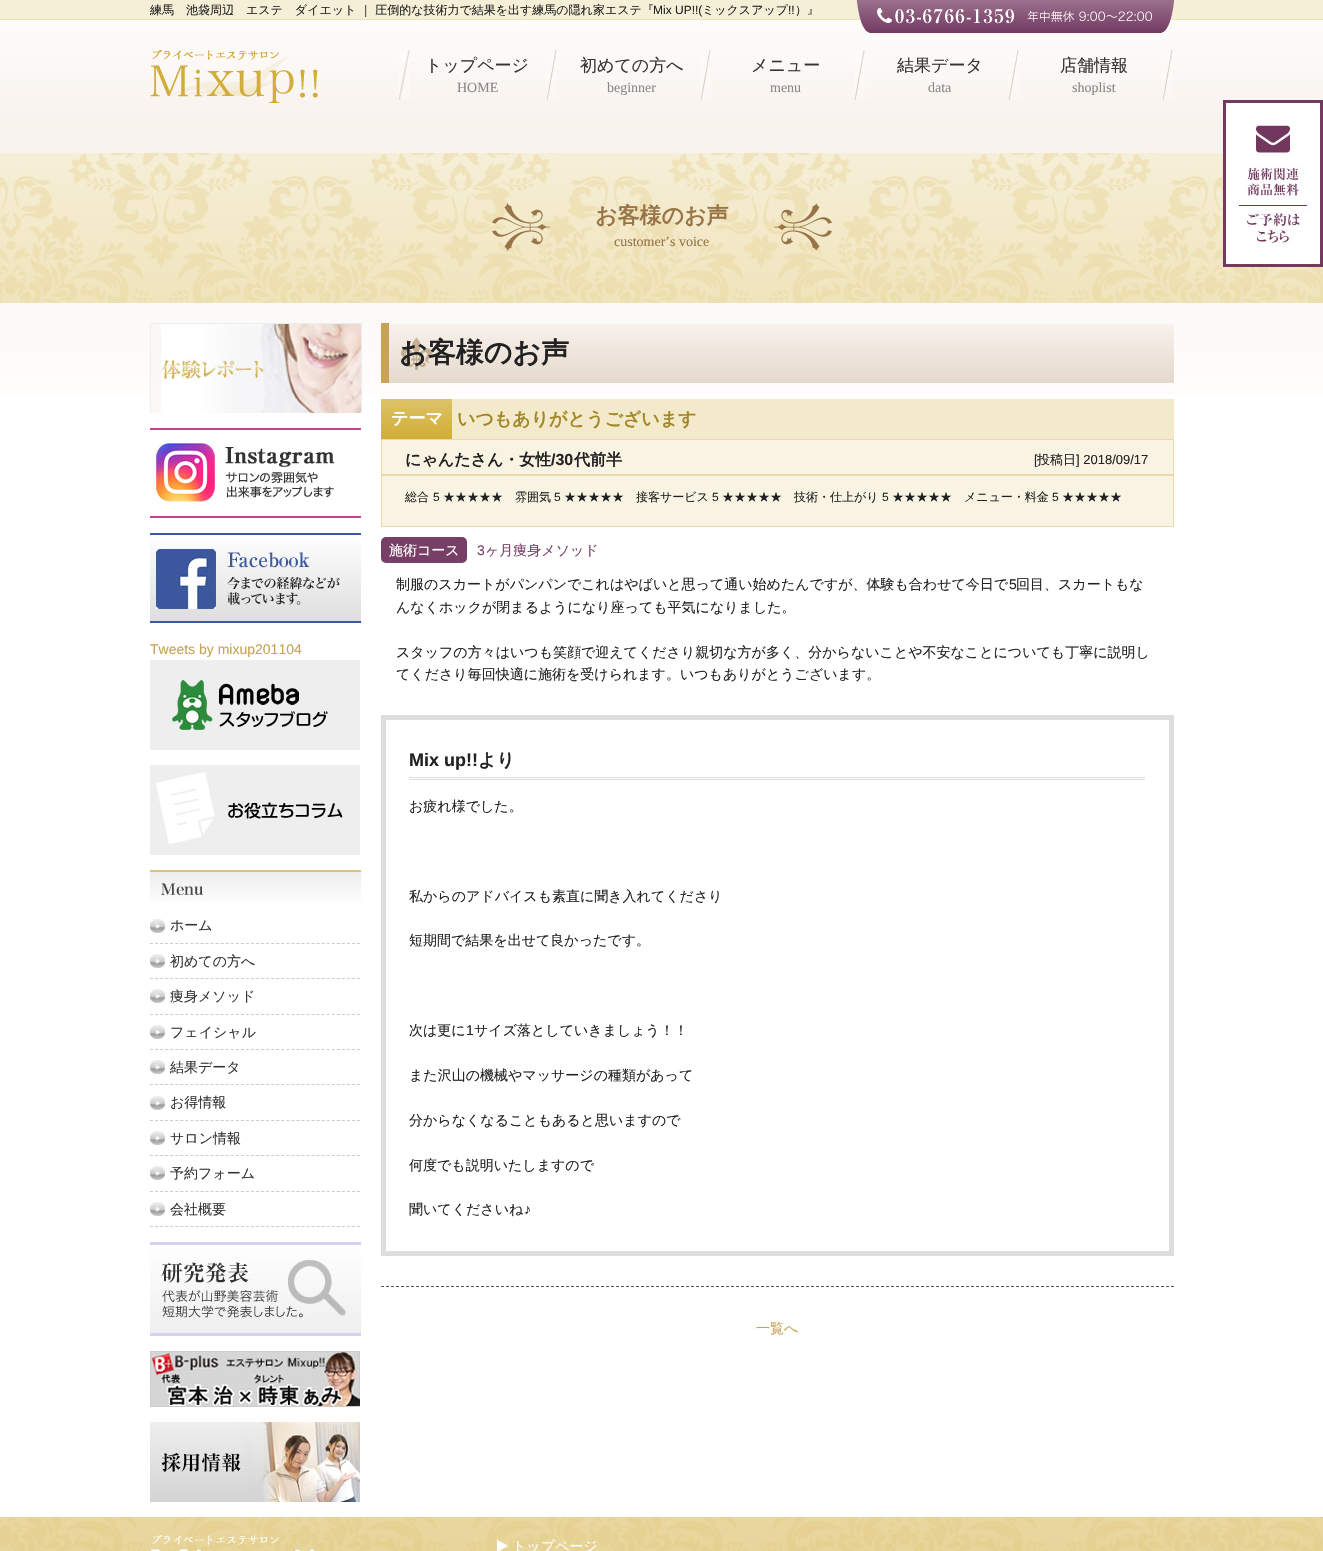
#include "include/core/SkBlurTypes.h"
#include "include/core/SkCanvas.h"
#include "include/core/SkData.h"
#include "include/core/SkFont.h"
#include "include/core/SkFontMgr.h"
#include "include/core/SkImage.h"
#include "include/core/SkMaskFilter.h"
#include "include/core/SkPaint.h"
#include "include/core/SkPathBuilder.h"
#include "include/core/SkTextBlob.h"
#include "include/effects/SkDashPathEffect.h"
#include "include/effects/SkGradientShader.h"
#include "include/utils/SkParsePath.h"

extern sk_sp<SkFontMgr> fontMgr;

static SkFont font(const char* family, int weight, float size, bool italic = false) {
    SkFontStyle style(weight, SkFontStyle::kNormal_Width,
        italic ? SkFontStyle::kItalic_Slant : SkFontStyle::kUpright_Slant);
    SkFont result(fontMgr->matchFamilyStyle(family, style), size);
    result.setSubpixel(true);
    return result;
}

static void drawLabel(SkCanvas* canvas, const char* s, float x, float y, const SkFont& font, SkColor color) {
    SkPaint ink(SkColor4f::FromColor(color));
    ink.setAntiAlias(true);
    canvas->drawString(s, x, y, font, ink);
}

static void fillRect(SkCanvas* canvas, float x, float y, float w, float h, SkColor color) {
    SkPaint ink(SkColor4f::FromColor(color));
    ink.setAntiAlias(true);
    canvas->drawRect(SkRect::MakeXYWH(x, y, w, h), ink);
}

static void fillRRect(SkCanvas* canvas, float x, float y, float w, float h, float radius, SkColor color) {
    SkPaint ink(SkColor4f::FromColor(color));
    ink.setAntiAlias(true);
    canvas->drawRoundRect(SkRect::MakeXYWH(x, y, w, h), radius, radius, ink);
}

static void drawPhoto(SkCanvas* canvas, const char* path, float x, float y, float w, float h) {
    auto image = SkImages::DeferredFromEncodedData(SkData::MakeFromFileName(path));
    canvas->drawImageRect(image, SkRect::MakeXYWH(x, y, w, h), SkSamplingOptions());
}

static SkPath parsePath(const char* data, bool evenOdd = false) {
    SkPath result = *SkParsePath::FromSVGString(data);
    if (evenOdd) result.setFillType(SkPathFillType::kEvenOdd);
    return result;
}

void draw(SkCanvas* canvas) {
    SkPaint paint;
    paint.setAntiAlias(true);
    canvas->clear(0xFFFFFFFF);
    {
        const SkColor colors[] = {0xFFFFFFFF, 0xFFF8F2ED};
        const float stops[] = {0, 1};
        const SkPoint ends[] = {{662, 0}, {662, 123}};
        paint.setShader(SkGradientShader::MakeLinear(ends, colors, stops, 2, SkTileMode::kClamp));
        paint.setAlpha(255);
    }
    canvas->drawRect(SkRect::MakeXYWH(0, 20, 1323, 103), paint);
    fillRect(canvas, 0, 0, 1323, 19, 0xFFF6EFD7);
    fillRect(canvas, 0, 19, 1323, 1, 0xFFEFE3BA);
    SkFont font1 = font("WenQuanYi Zen Hei", 500, 12);
    drawLabel(canvas, "練馬　池袋周辺　エステ　ダイエット ｜ 圧倒的な技術力で結果を出す練馬の隠れ家エステ『", 150, 14, font1, 0xFF222222);
    SkFont font2 = font("Liberation Sans", 400, 12);
    drawLabel(canvas, "Mix UP!!(", 653, 14, font2, 0xFF222222);
    drawLabel(canvas, "ミックスアップ", 702, 14, font1, 0xFF222222);
    drawLabel(canvas, "!!", 788, 14, font2, 0xFF222222);
    drawLabel(canvas, "）』", 795, 14, font1, 0xFF222222);
    drawPhoto(canvas, "assets/img1.png", 856, 0, 318, 33);
    drawPhoto(canvas, "assets/img2.png", 150, 50, 168, 53);
    drawPhoto(canvas, "assets/img3.png", 398, 50, 12, 50);
    drawPhoto(canvas, "assets/img4.png", 546, 50, 11, 50);
    SkFont font3 = font("WenQuanYi Zen Hei", 500, 17);
    drawLabel(canvas, "トップページ", 425, 71, font3, 0xFF333333);
    SkFont font4 = font("Liberation Serif", 400, 14);
    drawLabel(canvas, "HOME", 457, 92, font4, 0xFF888888);
    drawPhoto(canvas, "assets/img4.png", 700, 50, 11, 50);
    drawLabel(canvas, "初めての方へ", 580, 71, font3, 0xFF333333);
    drawLabel(canvas, "beginner", 607, 92, font4, 0xFF888888);
    drawPhoto(canvas, "assets/img4.png", 854, 50, 11, 50);
    drawLabel(canvas, "メニュー", 751, 71, font3, 0xFF333333);
    drawLabel(canvas, "menu", 770, 92, font4, 0xFF888888);
    drawPhoto(canvas, "assets/img4.png", 1008, 50, 11, 50);
    drawLabel(canvas, "結果データ", 897, 71, font3, 0xFF333333);
    drawLabel(canvas, "data", 928, 92, font4, 0xFF888888);
    drawPhoto(canvas, "assets/img4.png", 1162, 50, 11, 50);
    drawLabel(canvas, "店舗情報", 1060, 71, font3, 0xFF333333);
    drawLabel(canvas, "shoplist", 1072, 92, font4, 0xFF888888);
    {
        const SkColor colors[] = {0xFFF8F2ED, 0xFFFFFFFF};
        const float stops[] = {0, 0.2f};
        const SkPoint ends[] = {{661, 123}, {662, 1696}};
        paint.setShader(SkGradientShader::MakeLinear(ends, colors, stops, 2, SkTileMode::kClamp));
        paint.setAlpha(255);
    }
    canvas->drawRect(SkRect::MakeXYWH(0, 123, 1323, 271), paint);
    drawPhoto(canvas, "assets/img6.png", 0, 153, 1323, 150);
    drawPhoto(canvas, "assets/img5.png", 1223, 100, 100, 167);
    drawPhoto(canvas, "assets/img7.png", 492, 203, 340, 48);
    SkFont font5 = font("WenQuanYi Zen Hei", 700, 22);
    drawLabel(canvas, "お客様のお声", 595, 223, font5, 0xFF997447);
    drawLabel(canvas, "customer’s voice", 614, 246, font4, 0xFF997447);
    drawPhoto(canvas, "assets/img8.png", 150, 323, 212, 90);
    drawPhoto(canvas, "assets/img9.png", 150, 428, 211, 90);
    drawPhoto(canvas, "assets/img10.png", 150, 533, 211, 90);
    SkFont font6 = font("Liberation Sans", 400, 14);
    drawLabel(canvas, "Tweets by mixup201104", 150, 654, font6, 0xFFC8A257);
    drawPhoto(canvas, "assets/img11.png", 150, 660, 210, 90);
    drawPhoto(canvas, "assets/img12.png", 150, 765, 210, 90);
    drawPhoto(canvas, "assets/img13.png", 150, 870, 211, 32);
    drawPhoto(canvas, "assets/img14.png", 150, 919, 15, 14);
    paint.setStroke(true);
    paint.setStrokeWidth(1);
    paint.setShader(nullptr);
    paint.setColor(0xFFCCCCCC);
    paint.setPathEffect(SkDashPathEffect::Make({{3, 2.05f}}, 0));
    canvas->drawPath(parsePath("M150 943.5H360"), paint);
    paint.setPathEffect(nullptr);
    SkFont font7 = font("WenQuanYi Zen Hei", 500, 14);
    drawLabel(canvas, "ホーム", 170, 930, font7, 0xFF333333);
    drawPhoto(canvas, "assets/img14.png", 150, 954, 15, 14);
    paint.setPathEffect(SkDashPathEffect::Make({{3, 2.05f}}, 0));
    canvas->drawPath(parsePath("M150 978.5H360"), paint);
    paint.setPathEffect(nullptr);
    drawLabel(canvas, "初めての方へ", 170, 966, font7, 0xFF333333);
    drawPhoto(canvas, "assets/img14.png", 150, 989, 15, 14);
    paint.setPathEffect(SkDashPathEffect::Make({{3, 2.05f}}, 0));
    canvas->drawPath(parsePath("M150 1014.5H360"), paint);
    paint.setPathEffect(nullptr);
    drawLabel(canvas, "痩身メソッド", 170, 1001, font7, 0xFF333333);
    drawPhoto(canvas, "assets/img14.png", 150, 1025, 15, 14);
    paint.setPathEffect(SkDashPathEffect::Make({{3, 2.05f}}, 0));
    canvas->drawPath(parsePath("M150 1049.5H360"), paint);
    paint.setPathEffect(nullptr);
    drawLabel(canvas, "フェイシャル", 170, 1037, font7, 0xFF333333);
    drawPhoto(canvas, "assets/img14.png", 150, 1060, 15, 14);
    paint.setPathEffect(SkDashPathEffect::Make({{3, 2.05f}}, 0));
    canvas->drawPath(parsePath("M150 1084.5H360"), paint);
    paint.setPathEffect(nullptr);
    drawLabel(canvas, "結果データ", 170, 1072, font7, 0xFF333333);
    drawPhoto(canvas, "assets/img14.png", 150, 1096, 15, 14);
    paint.setPathEffect(SkDashPathEffect::Make({{3, 2.05f}}, 0));
    canvas->drawPath(parsePath("M150 1120.5H360"), paint);
    paint.setPathEffect(nullptr);
    drawLabel(canvas, "お得情報", 170, 1107, font7, 0xFF333333);
    drawPhoto(canvas, "assets/img14.png", 150, 1131, 15, 14);
    paint.setPathEffect(SkDashPathEffect::Make({{3, 2.05f}}, 0));
    canvas->drawPath(parsePath("M150 1155.5H360"), paint);
    paint.setPathEffect(nullptr);
    drawLabel(canvas, "サロン情報", 170, 1143, font7, 0xFF333333);
    drawPhoto(canvas, "assets/img14.png", 150, 1166, 15, 14);
    paint.setPathEffect(SkDashPathEffect::Make({{3, 2.05f}}, 0));
    canvas->drawPath(parsePath("M150 1191.5H360"), paint);
    paint.setPathEffect(nullptr);
    drawLabel(canvas, "予約フォーム", 170, 1178, font7, 0xFF333333);
    drawPhoto(canvas, "assets/img14.png", 150, 1202, 15, 14);
    paint.setPathEffect(SkDashPathEffect::Make({{3, 2.05f}}, 0));
    canvas->drawPath(parsePath("M150 1226.5H360"), paint);
    paint.setPathEffect(nullptr);
    drawLabel(canvas, "会社概要", 170, 1214, font7, 0xFF333333);
    drawPhoto(canvas, "assets/img15.png", 150, 1242, 211, 94);
    drawPhoto(canvas, "assets/img16.png", 150, 1351, 210, 56);
    drawPhoto(canvas, "assets/img17.png", 150, 1422, 210, 80);
    drawPhoto(canvas, "assets/img18.png", 389, 323, 785, 60);
    fillRect(canvas, 381, 323, 8, 60, 0xFFC8A257);
    SkFont font8 = font("WenQuanYi Zen Hei", 700, 28);
    drawLabel(canvas, "お客様のお声", 399, 362, font8, 0xFF222222);
    paint.setColor(0xFF555555);
    paint.setPathEffect(SkDashPathEffect::Make({{3, 2}}, 0));
    canvas->drawPath(parsePath("M381 1286.5H1174"), paint);
    paint.setPathEffect(nullptr);
    fillRect(canvas, 452, 399, 722, 40, 0xFFF3EACB);
    paint.setStroke(false);
    {
        const SkColor colors[] = {0xFFDDC268, 0xFFD1AE34};
        const float stops[] = {0, 1};
        const SkPoint ends[] = {{417, 399}, {417, 439}};
        paint.setShader(SkGradientShader::MakeLinear(ends, colors, stops, 2, SkTileMode::kClamp));
        paint.setAlpha(255);
    }
    canvas->drawRect(SkRect::MakeXYWH(381, 399, 71, 40), paint);
    SkFont font9 = font("WenQuanYi Zen Hei", 700, 17);
    drawLabel(canvas, "テーマ", 391, 424, font9, 0xFFFFFFFF);
    SkFont font10 = font("WenQuanYi Zen Hei", 700, 18);
    drawLabel(canvas, "いつもありがとうございます", 457, 425, font10, 0xFFA38625);
    paint.setShader(nullptr);
    paint.setColor(0xFFF9F3E3);
    canvas->drawRect(SkRect::MakeXYWH(381.5f, 439.5f, 792, 87), paint);
    paint.setStroke(true);
    paint.setColor(0xFFECD9A8);
    canvas->drawRect(SkRect::MakeXYWH(381.5f, 439.5f, 792, 87), paint);
    fillRect(canvas, 382, 474, 791, 2, 0xFFECD9A8);
    SkFont font11 = font("WenQuanYi Zen Hei", 700, 16);
    drawLabel(canvas, "にゃんたさん・女性", 405, 465, font11, 0xFF222222);
    SkFont font12 = font("Liberation Sans", 700, 16);
    drawLabel(canvas, "/30", 551, 465, font12, 0xFF222222);
    drawLabel(canvas, "代前半", 574, 465, font11, 0xFF222222);
    SkFont font13 = font("Liberation Sans", 400, 13);
    drawLabel(canvas, "[", 1034, 464, font13, 0xFF222222);
    SkFont font14 = font("WenQuanYi Zen Hei", 500, 13);
    drawLabel(canvas, "投稿日", 1037, 464, font14, 0xFF222222);
    drawLabel(canvas, "] 2018/09/17", 1076, 464, font13, 0xFF222222);
    drawLabel(canvas, "総合", 405, 501, font1, 0xFF222222);
    drawLabel(canvas, "5", 433, 501, font2, 0xFF222222);
    drawLabel(canvas, "★★★★★", 443, 501, font1, 0xFF222222);
    drawLabel(canvas, "雰囲気", 515, 501, font1, 0xFF222222);
    drawLabel(canvas, "5", 554, 501, font2, 0xFF222222);
    drawLabel(canvas, "★★★★★", 564, 501, font1, 0xFF222222);
    drawLabel(canvas, "接客サービス", 636, 501, font1, 0xFF222222);
    drawLabel(canvas, "5", 712, 501, font2, 0xFF222222);
    drawLabel(canvas, "★★★★★", 722, 501, font1, 0xFF222222);
    drawLabel(canvas, "技術・仕上がり", 794, 501, font1, 0xFF222222);
    drawLabel(canvas, "5", 882, 501, font2, 0xFF222222);
    drawLabel(canvas, "★★★★★", 892, 501, font1, 0xFF222222);
    drawLabel(canvas, "メニュー・料金", 964, 501, font1, 0xFF222222);
    drawLabel(canvas, "5", 1052, 501, font2, 0xFF222222);
    drawLabel(canvas, "★★★★★", 1062, 501, font1, 0xFF222222);
    fillRRect(canvas, 381, 537, 86, 26, 5, 0xFF773F66);
    drawLabel(canvas, "施術コース", 389, 555, font7, 0xFFFFFFFF);
    drawLabel(canvas, "3", 477, 555, font6, 0xFF773F66);
    drawLabel(canvas, "ヶ月痩身メソッド", 485, 555, font7, 0xFF773F66);
    drawLabel(canvas, "制服のスカートがパンパンでこれはやばいと思って通い始めたんですが、体験も合わせて今日で", 396, 589, font7, 0xFF222222);
    drawLabel(canvas, "5", 1009, 589, font6, 0xFF222222);
    drawLabel(canvas, "回目、スカートもな", 1016, 589, font7, 0xFF222222);
    drawLabel(canvas, "んなくホックが閉まるようになり座っても平気になりました。", 396, 612, font7, 0xFF222222);
    drawLabel(canvas, "スタッフの方々はいつも笑顔で迎えてくださり親切な方が多く、分からないことや不安なことについても丁寧に説明し", 396, 657, font7, 0xFF222222);
    drawLabel(canvas, "てくださり毎回快適に施術を受けられます。いつもありがとうございます。", 396, 679, font7, 0xFF222222);
    paint.setStrokeWidth(5);
    paint.setColor(0xFFDDDDDD);
    canvas->drawRect(SkRect::MakeXYWH(383.5f, 717.5f, 788, 536), paint);
    fillRect(canvas, 409, 777, 736, 1, 0xFFDDDDDD);
    fillRect(canvas, 409, 779, 736, 1, 0xFFDDDDDD);
    SkFont font15 = font("Liberation Sans", 700, 18);
    drawLabel(canvas, "Mix up!!", 409, 766, font15, 0xFF222222);
    drawLabel(canvas, "より", 478, 766, font10, 0xFF222222);
    drawLabel(canvas, "お疲れ様でした。", 409, 811, font7, 0xFF222222);
    drawLabel(canvas, "私からのアドバイスも素直に聞き入れてくださり", 409, 901, font7, 0xFF222222);
    drawLabel(canvas, "短期間で結果を出せて良かったです。", 409, 945, font7, 0xFF222222);
    drawLabel(canvas, "次は更に", 409, 1035, font7, 0xFF222222);
    drawLabel(canvas, "1", 466, 1035, font6, 0xFF222222);
    drawLabel(canvas, "サイズ落としていきましょう！！", 474, 1035, font7, 0xFF222222);
    drawLabel(canvas, "また沢山の機械やマッサージの種類があって", 409, 1080, font7, 0xFF222222);
    drawLabel(canvas, "分からなくなることもあると思いますので", 409, 1125, font7, 0xFF222222);
    drawLabel(canvas, "何度でも説明いたしますので", 409, 1170, font7, 0xFF222222);
    drawLabel(canvas, "聞いてくださいね", 409, 1214, font7, 0xFF222222);
    drawLabel(canvas, "♪", 524, 1214, font6, 0xFF222222);
    drawLabel(canvas, "一覧へ", 756, 1333, font7, 0xFFC8A257);
    drawPhoto(canvas, "assets/img19.png", 0, 1517, 1323, 34);
    drawPhoto(canvas, "assets/img20.png", 151, 1535, 164, 16);
    drawPhoto(canvas, "assets/img21.png", 497, 1540, 11, 11);
    drawLabel(canvas, "トップページ", 512, 1551, font7, 0xFFFFFFFF);
}
